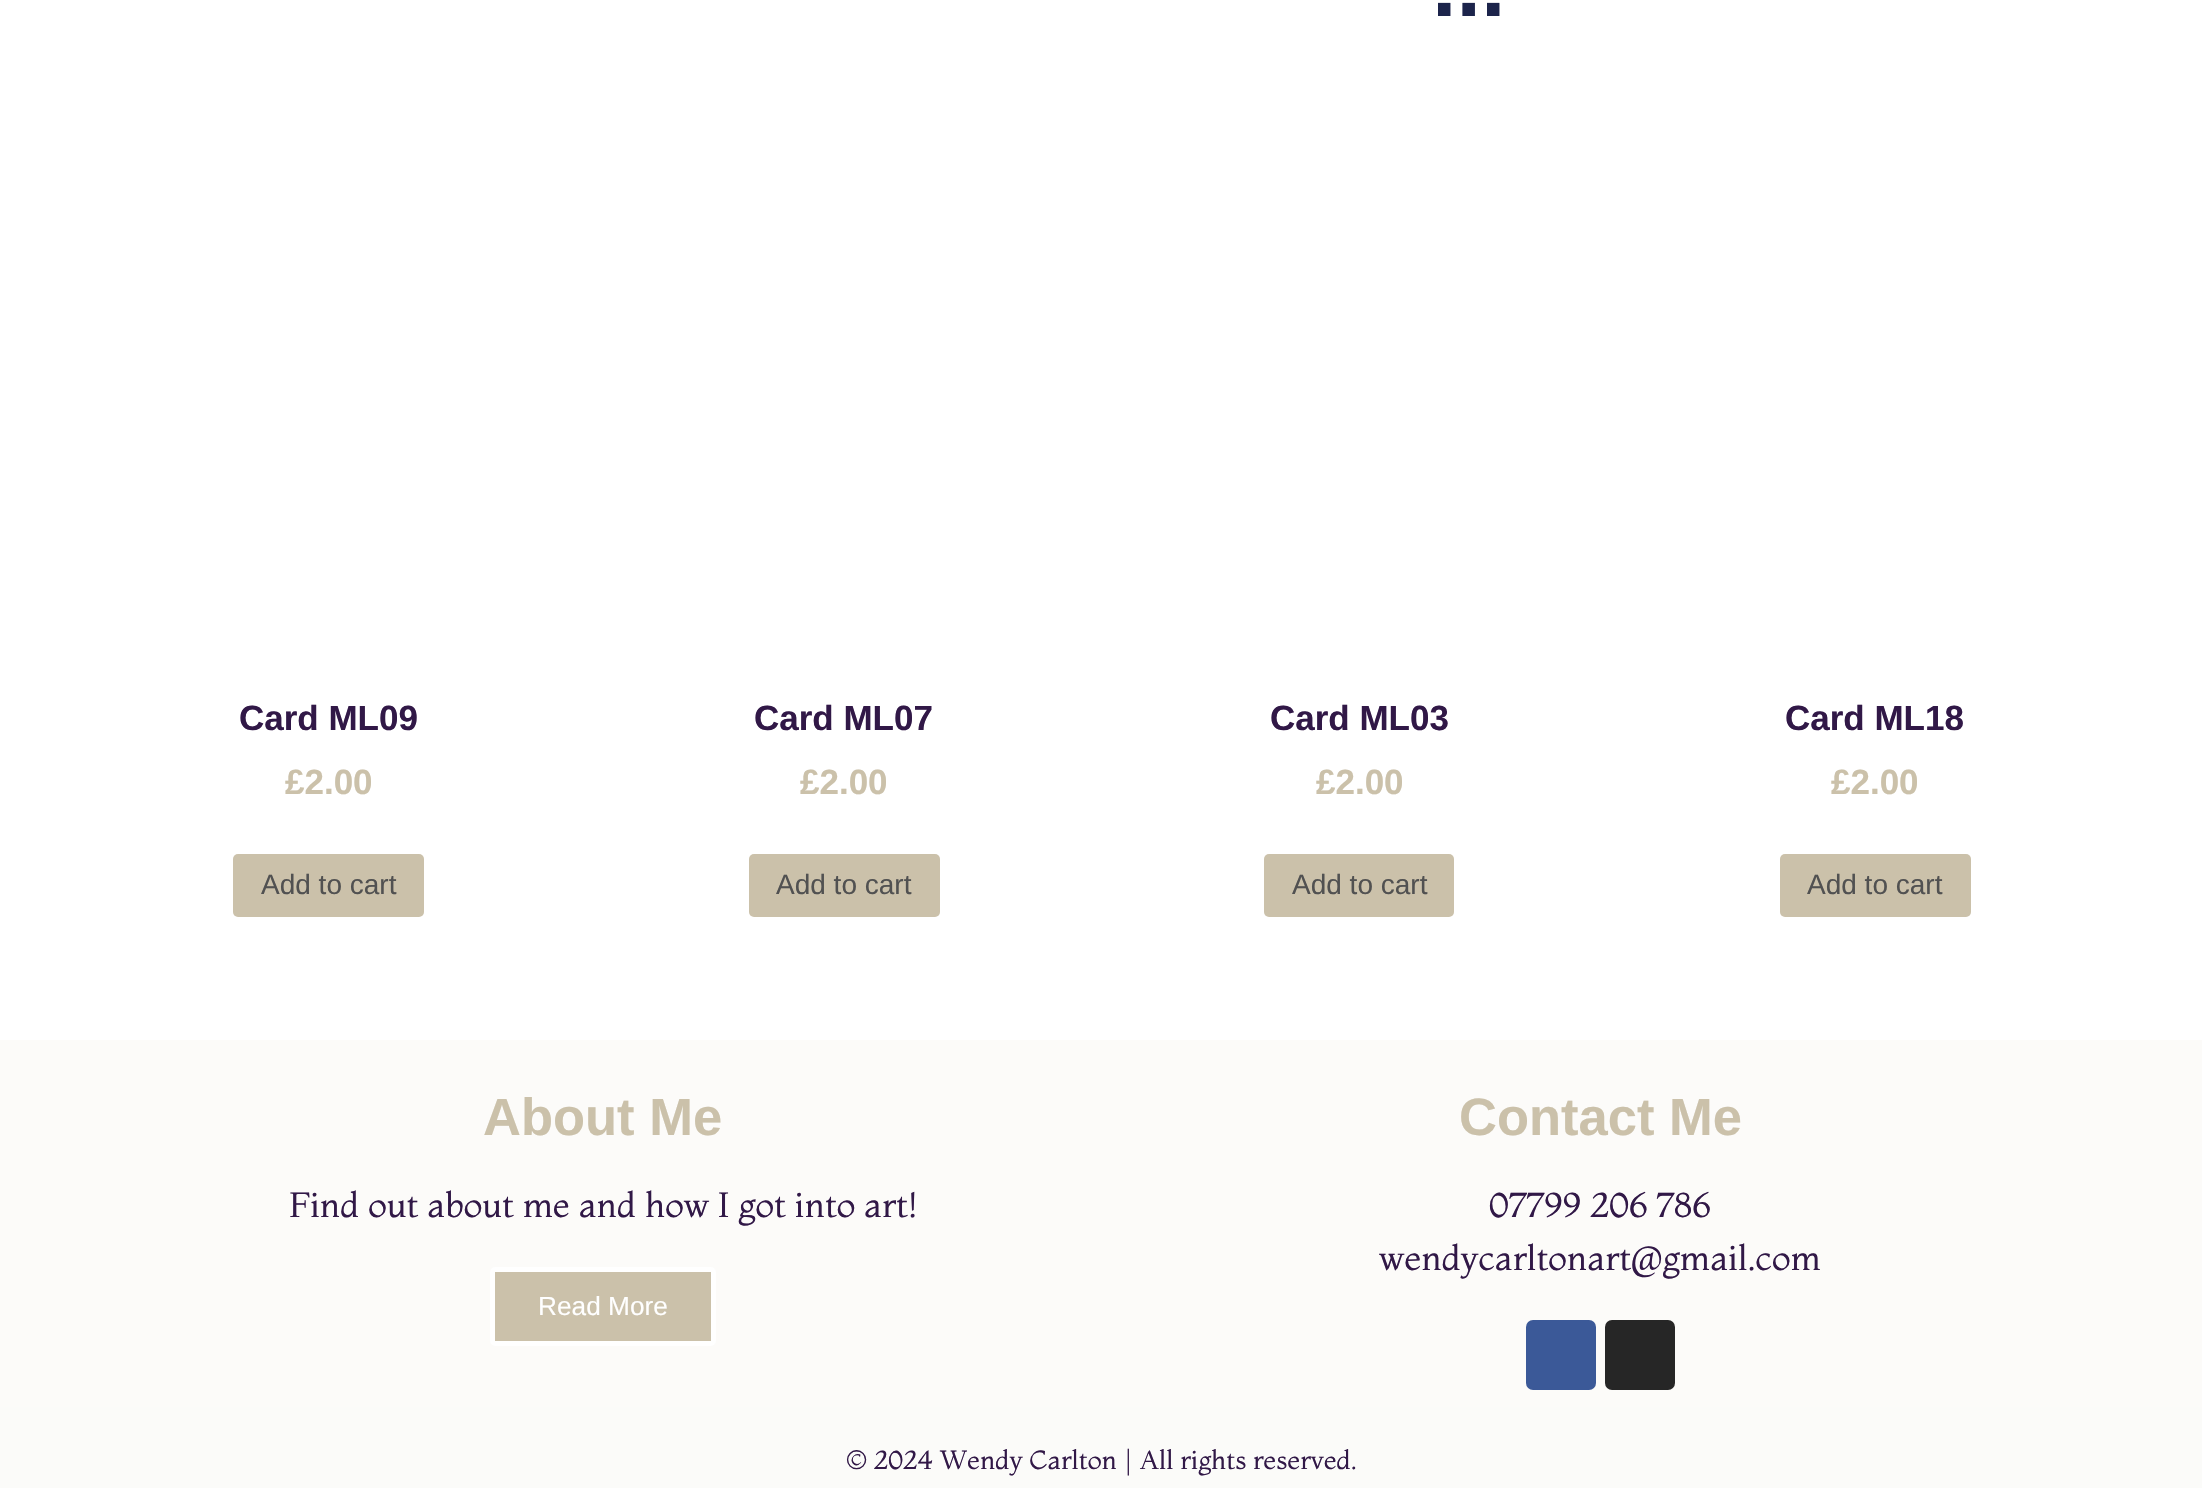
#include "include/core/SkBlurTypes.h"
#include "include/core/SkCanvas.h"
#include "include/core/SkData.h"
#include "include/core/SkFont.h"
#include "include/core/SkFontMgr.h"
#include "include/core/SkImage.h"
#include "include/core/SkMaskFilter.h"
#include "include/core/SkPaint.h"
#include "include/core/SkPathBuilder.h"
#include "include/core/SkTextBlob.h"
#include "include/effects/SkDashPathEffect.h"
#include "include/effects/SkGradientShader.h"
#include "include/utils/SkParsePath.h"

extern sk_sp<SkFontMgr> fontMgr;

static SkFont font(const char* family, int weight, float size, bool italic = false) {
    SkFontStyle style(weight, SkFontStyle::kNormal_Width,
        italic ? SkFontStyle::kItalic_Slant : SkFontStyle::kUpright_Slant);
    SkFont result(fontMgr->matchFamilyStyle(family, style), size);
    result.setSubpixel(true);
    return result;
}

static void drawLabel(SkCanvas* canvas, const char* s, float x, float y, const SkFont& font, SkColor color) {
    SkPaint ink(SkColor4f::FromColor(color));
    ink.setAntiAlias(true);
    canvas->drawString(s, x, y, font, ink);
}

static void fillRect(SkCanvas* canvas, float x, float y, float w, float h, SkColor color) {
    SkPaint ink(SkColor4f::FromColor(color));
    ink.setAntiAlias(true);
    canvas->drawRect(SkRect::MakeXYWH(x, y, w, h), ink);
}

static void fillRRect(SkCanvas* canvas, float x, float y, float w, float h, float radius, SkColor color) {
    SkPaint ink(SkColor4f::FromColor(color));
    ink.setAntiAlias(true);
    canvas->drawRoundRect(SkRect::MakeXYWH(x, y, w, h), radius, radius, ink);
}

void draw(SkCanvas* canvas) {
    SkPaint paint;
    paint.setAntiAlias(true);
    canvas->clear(0xFFFFFFFF);
    SkFont font1 = font("Liberation Sans", 700, 88);
    drawLabel(canvas, "...", 1432, 16, font1, 0xFF1C244B);
    SkFont font2 = font("Liberation Sans", 700, 35);
    drawLabel(canvas, "Card ML09", 239, 730, font2, 0xFF311847);
    drawLabel(canvas, "£2.00", 285, 794, font2, 0xFFCBC1AA);
    fillRRect(canvas, 233, 854, 191, 63, 5, 0xFFCBC1AA);
    SkFont font3 = font("Liberation Sans", 400, 28);
    drawLabel(canvas, "Add to cart", 261, 894, font3, 0xFF515151);
    drawLabel(canvas, "Card ML07", 754, 730, font2, 0xFF311847);
    drawLabel(canvas, "£2.00", 800, 794, font2, 0xFFCBC1AA);
    fillRRect(canvas, 749, 854, 191, 63, 5, 0xFFCBC1AA);
    drawLabel(canvas, "Add to cart", 776, 894, font3, 0xFF515151);
    drawLabel(canvas, "Card ML03", 1270, 730, font2, 0xFF311847);
    drawLabel(canvas, "£2.00", 1316, 794, font2, 0xFFCBC1AA);
    fillRRect(canvas, 1264, 854, 190, 63, 5, 0xFFCBC1AA);
    drawLabel(canvas, "Add to cart", 1292, 894, font3, 0xFF515151);
    drawLabel(canvas, "Card ML18", 1785, 730, font2, 0xFF311847);
    drawLabel(canvas, "£2.00", 1831, 794, font2, 0xFFCBC1AA);
    fillRRect(canvas, 1780, 854, 191, 63, 5, 0xFFCBC1AA);
    drawLabel(canvas, "Add to cart", 1807, 894, font3, 0xFF515151);
    fillRect(canvas, 0, 1040, 2202, 367, 0xFFFCFBF9);
    SkFont font4 = font("Liberation Sans", 700, 52.5f);
    drawLabel(canvas, "About Me", 483, 1135, font4, 0xFFCBC1AA);
    SkFont font5 = font("Montaga", 400, 35);
    drawLabel(canvas, "Find out about me and how I got into art!", 289, 1217, font5, 0xFF311847);
    paint.setColor(0xFFCBC1AA);
    canvas->drawRoundRect(SkRect::MakeXYWH(492.5f, 1269.5f, 221, 74), 2.5f, 2.5f, paint);
    paint.setStroke(true);
    paint.setStrokeWidth(5);
    paint.setColor(0xFFFFFFFF);
    canvas->drawRoundRect(SkRect::MakeXYWH(492.5f, 1269.5f, 221, 74), 2.5f, 2.5f, paint);
    SkFont font6 = font("Liberation Sans", 400, 26.25f);
    drawLabel(canvas, "Read More", 538, 1315, font6, 0xFFFFFFFF);
    drawLabel(canvas, "Contact Me", 1459, 1135, font4, 0xFFCBC1AA);
    drawLabel(canvas, "07799 206 786", 1489, 1217, font5, 0xFF311847);
    drawLabel(canvas, "wendycarltonart@gmail.com", 1379, 1270, font5, 0xFF311847);
    fillRRect(canvas, 1526, 1320, 70, 70, 7, 0xFF3B5998);
    fillRRect(canvas, 1605, 1320, 70, 70, 7, 0xFF262626);
    fillRect(canvas, 0, 1407, 2202, 81, 0xFFFBFBF9);
    SkFont font7 = font("Montaga", 400, 26.25f);
    drawLabel(canvas, "© 2024 Wendy Carlton | All rights reserved.", 846, 1469, font7, 0xFF311847);
}
